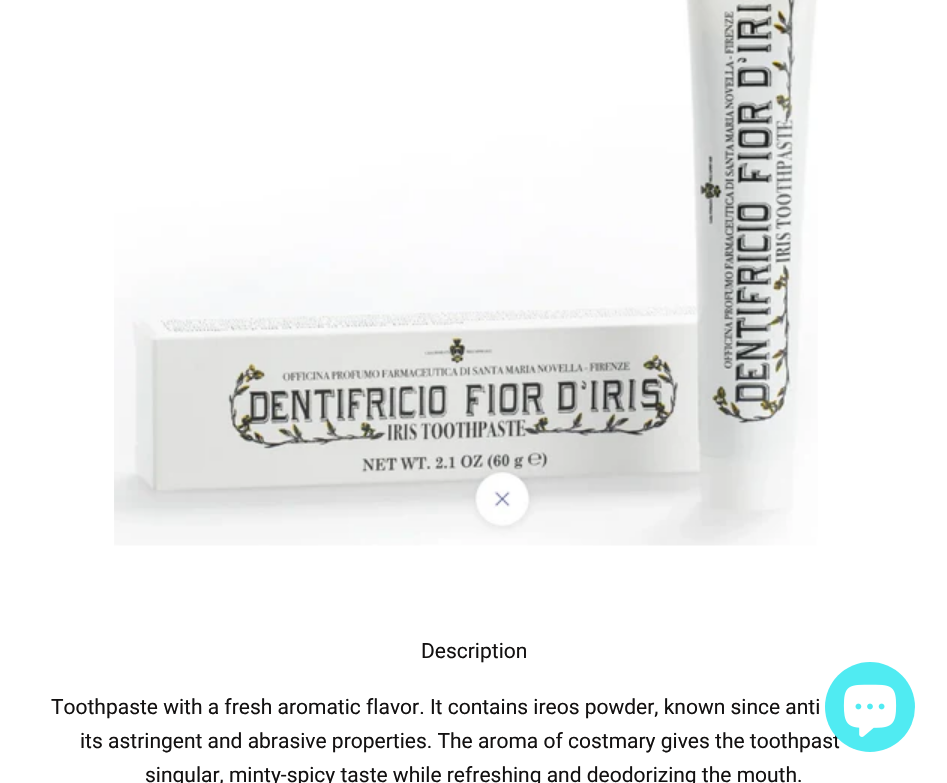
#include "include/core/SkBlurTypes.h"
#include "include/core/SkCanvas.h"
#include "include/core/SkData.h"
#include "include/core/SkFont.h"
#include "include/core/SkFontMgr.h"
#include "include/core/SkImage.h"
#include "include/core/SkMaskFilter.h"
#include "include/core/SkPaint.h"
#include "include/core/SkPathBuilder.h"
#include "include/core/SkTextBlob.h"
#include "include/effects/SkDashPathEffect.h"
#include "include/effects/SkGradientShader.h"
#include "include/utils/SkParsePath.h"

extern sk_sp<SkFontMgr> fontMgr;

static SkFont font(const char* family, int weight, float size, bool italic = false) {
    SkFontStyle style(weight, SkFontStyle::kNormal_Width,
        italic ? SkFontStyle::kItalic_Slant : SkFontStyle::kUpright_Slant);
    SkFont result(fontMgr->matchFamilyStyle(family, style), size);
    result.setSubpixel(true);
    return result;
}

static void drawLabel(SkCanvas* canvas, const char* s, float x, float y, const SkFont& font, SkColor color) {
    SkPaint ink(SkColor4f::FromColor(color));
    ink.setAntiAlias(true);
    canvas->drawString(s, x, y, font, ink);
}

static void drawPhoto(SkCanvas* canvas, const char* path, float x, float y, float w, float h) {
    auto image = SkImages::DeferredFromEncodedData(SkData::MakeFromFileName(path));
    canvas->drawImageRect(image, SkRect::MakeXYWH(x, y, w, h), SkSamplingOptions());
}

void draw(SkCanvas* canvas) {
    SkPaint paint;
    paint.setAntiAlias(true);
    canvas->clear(0xFFFFFFFF);
    drawPhoto(canvas, "assets/img1.png", 114, 0, 704, 546);
    SkFont font1 = font("Roboto", 400, 21);
    drawLabel(canvas, "Description", 421, 658, font1, 0xFF131111);
    drawLabel(canvas, "Toothpaste with a fresh aromatic flavor. It contains ireos powder, known since anti", 51, 714, font1, 0xFF131111);
    drawLabel(canvas, "its astringent and abrasive properties. The aroma of costmary gives the toothpast", 80, 748, font1, 0xFF131111);
    drawLabel(canvas, "singular, minty-spicy taste while refreshing and deodorizing the mouth.", 145, 782, font1, 0xFF131111);
    paint.setColor(0xFF50EBF2);
    canvas->drawCircle(870, 707, 45, paint);
    drawPhoto(canvas, "assets/img2.png", 843, 684, 54, 53);
}
